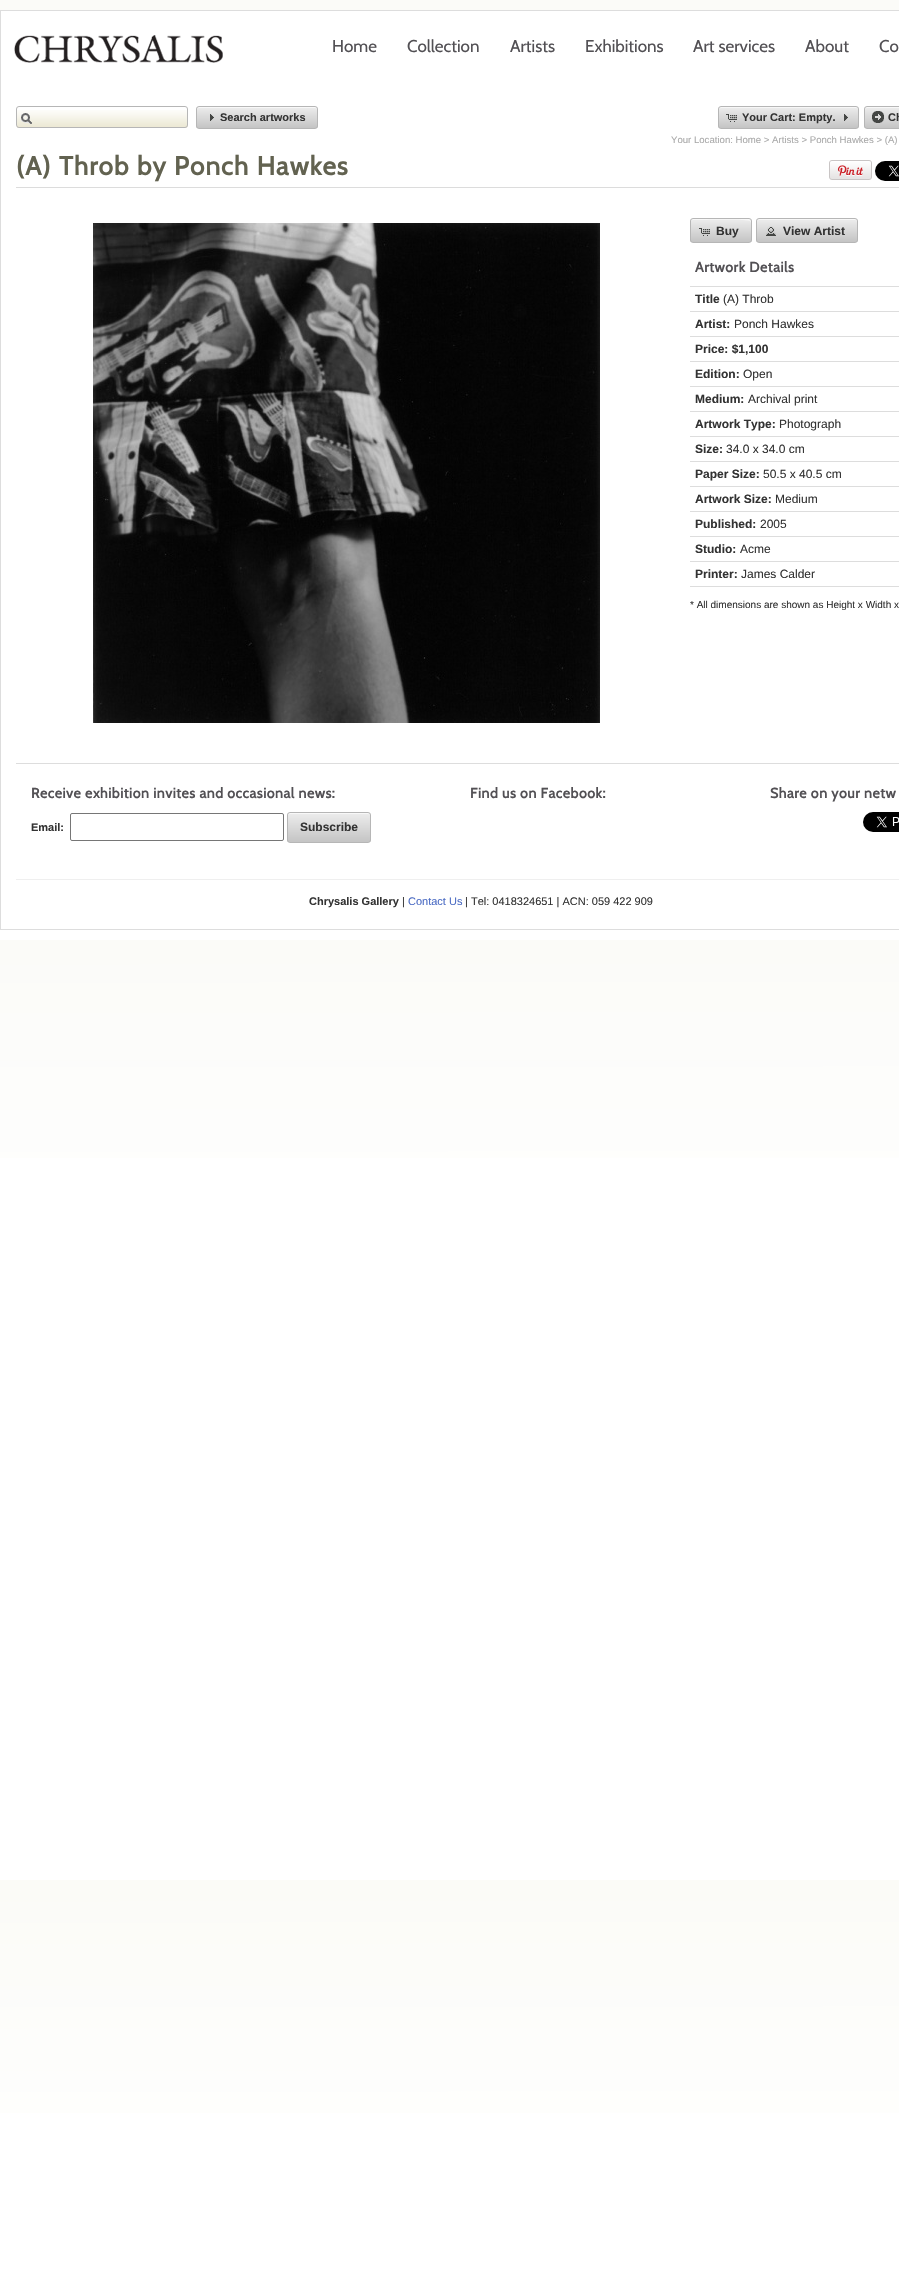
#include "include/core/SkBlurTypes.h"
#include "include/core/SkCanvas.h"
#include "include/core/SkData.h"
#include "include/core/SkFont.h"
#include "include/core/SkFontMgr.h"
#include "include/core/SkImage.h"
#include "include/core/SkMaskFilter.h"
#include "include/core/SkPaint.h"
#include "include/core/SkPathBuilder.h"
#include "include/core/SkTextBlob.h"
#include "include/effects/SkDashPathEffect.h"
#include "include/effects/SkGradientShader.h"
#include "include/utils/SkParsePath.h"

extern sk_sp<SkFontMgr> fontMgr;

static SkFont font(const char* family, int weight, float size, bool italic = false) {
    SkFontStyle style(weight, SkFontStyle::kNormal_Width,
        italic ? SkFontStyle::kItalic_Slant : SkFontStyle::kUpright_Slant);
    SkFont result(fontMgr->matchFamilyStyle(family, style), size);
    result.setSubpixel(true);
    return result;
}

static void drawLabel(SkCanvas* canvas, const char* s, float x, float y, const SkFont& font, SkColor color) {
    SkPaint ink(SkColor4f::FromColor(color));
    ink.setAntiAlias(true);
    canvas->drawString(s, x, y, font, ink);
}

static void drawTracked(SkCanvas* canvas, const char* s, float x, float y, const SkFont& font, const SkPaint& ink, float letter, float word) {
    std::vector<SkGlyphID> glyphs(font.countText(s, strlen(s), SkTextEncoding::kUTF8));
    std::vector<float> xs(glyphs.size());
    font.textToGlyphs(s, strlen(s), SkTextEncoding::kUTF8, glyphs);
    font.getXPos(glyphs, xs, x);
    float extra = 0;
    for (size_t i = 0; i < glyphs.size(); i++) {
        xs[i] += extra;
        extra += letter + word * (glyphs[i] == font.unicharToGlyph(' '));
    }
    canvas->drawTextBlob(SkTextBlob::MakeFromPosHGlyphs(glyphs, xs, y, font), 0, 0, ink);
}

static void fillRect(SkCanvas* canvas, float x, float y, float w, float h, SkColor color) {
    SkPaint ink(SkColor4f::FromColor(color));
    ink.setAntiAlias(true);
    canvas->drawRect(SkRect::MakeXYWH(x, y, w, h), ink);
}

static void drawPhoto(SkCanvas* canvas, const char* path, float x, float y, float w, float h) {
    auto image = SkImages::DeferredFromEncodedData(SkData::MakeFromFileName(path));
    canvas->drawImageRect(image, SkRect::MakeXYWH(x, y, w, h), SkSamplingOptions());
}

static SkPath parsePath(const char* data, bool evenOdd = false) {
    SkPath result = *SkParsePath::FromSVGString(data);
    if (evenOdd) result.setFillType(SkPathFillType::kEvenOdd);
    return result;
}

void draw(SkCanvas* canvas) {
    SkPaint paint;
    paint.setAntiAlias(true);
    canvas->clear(0xFFFFFFFF);
    {
        const SkColor colors[] = {0xFFFBFBF8, 0xFFFFFFFF, 0xFFFFFFFF};
        const float stops[] = {0, 0.36f, 1};
        const SkPoint ends[] = {{449, 0}, {450, 940}};
        paint.setShader(SkGradientShader::MakeLinear(ends, colors, stops, 3, SkTileMode::kClamp));
        paint.setAlpha(255);
    }
    canvas->drawRect(SkRect::MakeXYWH(0, 0, 899, 218), paint);
    {
        const SkColor colors[] = {0xFFFBFBF8, 0xFFFFFFFF, 0xFFFFFFFF};
        const float stops[] = {0, 0.36f, 1};
        const SkPoint ends[] = {{449, 940}, {450, 1880}};
        paint.setShader(SkGradientShader::MakeLinear(ends, colors, stops, 3, SkTileMode::kClamp));
        paint.setAlpha(255);
    }
    canvas->drawRect(SkRect::MakeXYWH(0, 940, 899, 218), paint);
    {
        const SkColor colors[] = {0xFFFBFBF7, 0xFFFFFFFF, 0xFFFFFFFF};
        const float stops[] = {0, 0.36f, 1};
        const SkPoint ends[] = {{449, 1880}, {450, 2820}};
        paint.setShader(SkGradientShader::MakeLinear(ends, colors, stops, 3, SkTileMode::kClamp));
        paint.setAlpha(255);
    }
    canvas->drawRect(SkRect::MakeXYWH(0, 1880, 899, 233), paint);
    fillRect(canvas, 1, 11, 898, 207, 0xFFFFFFFF);
    paint.setStroke(true);
    paint.setStrokeWidth(1);
    paint.setShader(nullptr);
    paint.setColor(0xFFDDDDDD);
    canvas->drawRect(SkRect::MakeXYWH(0.5f, 10.5f, 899, 919), paint);
    drawPhoto(canvas, "assets/img1.png", 14, 35, 209, 28);
    SkFont font1 = font("Cabin", 400, 17);
    drawLabel(canvas, "Home", 332, 52, font1, 0xFF525054);
    drawLabel(canvas, "Collection", 407, 52, font1, 0xFF525054);
    drawLabel(canvas, "Artists", 510, 52, font1, 0xFF525054);
    drawLabel(canvas, "Exhibitions", 585, 52, font1, 0xFF525054);
    drawLabel(canvas, "Art services", 693, 52, font1, 0xFF525054);
    drawLabel(canvas, "About", 805, 52, font1, 0xFF525054);
    drawLabel(canvas, "Co", 879, 52, font1, 0xFF525054);
    drawPhoto(canvas, "assets/img2.png", 17, 110, 171, 18);
    paint.setColor(0xFFB6B6B6);
    canvas->drawRoundRect(SkRect::MakeXYWH(16.5f, 106.5f, 171, 21), 2.5f, 2.5f, paint);
    canvas->save();
    canvas->clipPath(parsePath("M199 106H315C316.5 106 318 107.5 318 109V126C318 127.5 316.5 129 315 129H199C197.5 129 196 127.5 196 126V109C196 107.5 197.5 106 199 106Z"), true);
    paint.setStroke(false);
    {
        const SkColor colors[] = {0xFFC4C4C4, 0xFFEDEDED};
        const float stops[] = {0, 1};
        const SkPoint ends[] = {{197, 128}, {197, 107}};
        paint.setShader(SkGradientShader::MakeLinear(ends, colors, stops, 2, SkTileMode::kClamp));
        paint.setAlpha(255);
    }
    canvas->drawRect(SkRect::MakeXYWH(196, 107, 122, 21), paint);
    canvas->restore();
    paint.setShader(nullptr);
    paint.setColor(0x99FFFFFF);
    canvas->drawPath(parsePath("M199 108H315C316 108 317 109 317 110C317 109 317 108 316 107H218C212 107 197 103 197 110C197 109 198 108 199 108Z"), paint);
    paint.setStroke(true);
    paint.setColor(0xFFB6B6B6);
    canvas->drawRoundRect(SkRect::MakeXYWH(196.5f, 106.5f, 121, 22), 2.5f, 2.5f, paint);
    drawPhoto(canvas, "assets/img3.png", 210, 114, 4, 7);
    SkFont font2 = font("Liberation Sans", 700, 11);
    drawLabel(canvas, "Search artworks", 220, 121, font2, 0xFF333333);
    canvas->save();
    canvas->clipPath(parsePath("M721 106H856C857.5 106 859 107.5 859 109V126C859 127.5 857.5 129 856 129H721C719.5 129 718 127.5 718 126V109C718 107.5 719.5 106 721 106Z"), true);
    paint.setStroke(false);
    {
        const SkColor colors[] = {0xFFC4C4C4, 0xFFEDEDED};
        const float stops[] = {0, 1};
        const SkPoint ends[] = {{719, 128}, {719, 107}};
        paint.setShader(SkGradientShader::MakeLinear(ends, colors, stops, 2, SkTileMode::kClamp));
        paint.setAlpha(255);
    }
    canvas->drawRect(SkRect::MakeXYWH(718, 107, 141, 21), paint);
    canvas->restore();
    paint.setShader(nullptr);
    paint.setColor(0xFFF7F7F7);
    canvas->drawPath(parsePath("M721 108H856C857 108 858 109 858 110C858 109 858 107 856 107H721C719 107 719 109 719 110C719 109 720 108 721 108Z"), paint);
    paint.setStroke(true);
    paint.setColor(0xFFB6B6B6);
    canvas->drawRoundRect(SkRect::MakeXYWH(718.5f, 106.5f, 140, 22), 2.5f, 2.5f, paint);
    drawPhoto(canvas, "assets/img4.png", 726, 114, 11, 8);
    drawLabel(canvas, "Your Cart: Empty.", 742, 121, font2, 0xFF333333);
    drawPhoto(canvas, "assets/img3.png", 844, 114, 4, 7);
    canvas->save();
    canvas->clipPath(parsePath("M867 106H947C948.5 106 950 107.5 950 109V126C950 127.5 948.5 129 947 129H867C865.5 129 864 127.5 864 126V109C864 107.5 865.5 106 867 106Z"), true);
    paint.setStroke(false);
    {
        const SkColor colors[] = {0xFFC4C4C4, 0xFFEDEDED};
        const float stops[] = {0, 1};
        const SkPoint ends[] = {{865, 128}, {865, 107}};
        paint.setShader(SkGradientShader::MakeLinear(ends, colors, stops, 2, SkTileMode::kClamp));
        paint.setAlpha(255);
    }
    canvas->drawRect(SkRect::MakeXYWH(864, 107, 35, 21), paint);
    canvas->restore();
    paint.setShader(nullptr);
    paint.setColor(0x99FFFFFF);
    canvas->drawPath(parsePath("M867 108H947C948 108 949 109 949 110C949 103 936 107 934 107H880C878 107 865 103 865 110C865 109 866 108 867 108Z"), paint);
    paint.setStroke(true);
    paint.setColor(0xFFB6B6B6);
    canvas->drawRoundRect(SkRect::MakeXYWH(864.5f, 106.5f, 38, 22), 2.5f, 2.5f, paint);
    drawPhoto(canvas, "assets/img5.png", 872, 111, 12, 12);
    drawLabel(canvas, "Ch", 888, 121, font2, 0xFF333333);
    fillRect(canvas, 16, 187, 883, 1, 0xFFDCDCDC);
    SkFont font3 = font("Liberation Sans", 400, 9.6f);
    drawLabel(canvas, "Your Location: Home > Artists > Ponch Hawkes > (A)", 671, 143, font3, 0xFFAAAAAA);
    SkFont font4 = font("Cabin", 700, 26);
    paint.setStroke(false);
    paint.setColor(0xFF626250);
    drawTracked(canvas, "(A) Throb by Ponch Hawkes", 16, 175, font4, paint, 1.1f, 0.5f);
    drawPhoto(canvas, "assets/img6.png", 829, 160, 43, 20);
    drawPhoto(canvas, "assets/img7.png", 875, 161, 24, 20);
    drawPhoto(canvas, "assets/img8.png", 93, 223, 507, 500);
    canvas->save();
    canvas->clipPath(parsePath("M693 218H749C750.5 218 752 219.5 752 221V240C752 241.5 750.5 243 749 243H693C691.5 243 690 241.5 690 240V221C690 219.5 691.5 218 693 218Z"), true);
    {
        const SkColor colors[] = {0xFFC4C4C4, 0xFFEDEDED};
        const float stops[] = {0, 1};
        const SkPoint ends[] = {{691, 242}, {691, 219}};
        paint.setShader(SkGradientShader::MakeLinear(ends, colors, stops, 2, SkTileMode::kClamp));
        paint.setAlpha(255);
    }
    canvas->drawRect(SkRect::MakeXYWH(690, 219, 62, 23), paint);
    canvas->restore();
    paint.setShader(nullptr);
    paint.setColor(0x99FFFFFF);
    canvas->drawPath(parsePath("M693 220C703 220 749 219 750 221L751 223V240V224C751 216 749 219 740 219H702C701 219 691 217 691 221C691 221 692 220 693 220Z"), paint);
    paint.setStroke(true);
    paint.setColor(0xFFB6B6B6);
    canvas->drawRoundRect(SkRect::MakeXYWH(690.5f, 218.5f, 61, 24), 2.5f, 2.5f, paint);
    drawPhoto(canvas, "assets/img9.png", 699, 228, 11, 8);
    SkFont font5 = font("Liberation Sans", 700, 12);
    drawLabel(canvas, "Buy", 716, 235, font5, 0xFF333333);
    canvas->save();
    canvas->clipPath(parsePath("M759 218H855C856.5 218 858 219.5 858 221V240C858 241.5 856.5 243 855 243H759C757.5 243 756 241.5 756 240V221C756 219.5 757.5 218 759 218Z"), true);
    paint.setStroke(false);
    {
        const SkColor colors[] = {0xFFC4C4C4, 0xFFEDEDED};
        const float stops[] = {0, 1};
        const SkPoint ends[] = {{757, 242}, {757, 219}};
        paint.setShader(SkGradientShader::MakeLinear(ends, colors, stops, 2, SkTileMode::kClamp));
        paint.setAlpha(255);
    }
    canvas->drawRect(SkRect::MakeXYWH(756, 219, 102, 23), paint);
    canvas->restore();
    paint.setShader(nullptr);
    paint.setColor(0x99FFFFFF);
    canvas->drawPath(parsePath("M759 220H855C856 220 857 221 857 222C857 221 857 219 855 219H775C774 219 757 215 757 222C757 221 758 220 759 220Z"), paint);
    paint.setStroke(true);
    paint.setColor(0xFFB6B6B6);
    canvas->drawRoundRect(SkRect::MakeXYWH(756.5f, 218.5f, 101, 24), 2.5f, 2.5f, paint);
    drawPhoto(canvas, "assets/img10.png", 766, 226, 10, 10);
    drawLabel(canvas, "View Artist", 783, 235, font5, 0xFF333333);
    fillRect(canvas, 690, 286, 209, 1, 0xFFDDDDDD);
    SkFont font6 = font("Cabin", 700, 14);
    paint.setStroke(false);
    paint.setColor(0xFF525054);
    drawTracked(canvas, "Artwork Details", 695, 272, font6, paint, 0.6f, 0);
    fillRect(canvas, 690, 311, 209, 1, 0xFFDDDDDD);
    drawLabel(canvas, "Title", 695, 303, font5, 0xFF333333);
    SkFont font7 = font("Liberation Sans", 400, 12);
    drawLabel(canvas, "(A) Throb", 723, 303, font7, 0xFF333333);
    fillRect(canvas, 690, 336, 209, 1, 0xFFDDDDDD);
    drawLabel(canvas, "Artist:", 695, 328, font5, 0xFF333333);
    drawLabel(canvas, "Ponch Hawkes", 734, 328, font7, 0xFF333333);
    fillRect(canvas, 690, 361, 209, 1, 0xFFDDDDDD);
    drawLabel(canvas, "Price: $1,100", 695, 353, font5, 0xFF333333);
    fillRect(canvas, 690, 386, 209, 1, 0xFFDDDDDD);
    drawLabel(canvas, "Edition:", 695, 378, font5, 0xFF333333);
    drawLabel(canvas, "Open", 743, 378, font7, 0xFF333333);
    fillRect(canvas, 690, 411, 209, 1, 0xFFDDDDDD);
    drawLabel(canvas, "Medium:", 695, 403, font5, 0xFF333333);
    drawLabel(canvas, "Archival print", 748, 403, font7, 0xFF333333);
    fillRect(canvas, 690, 436, 209, 1, 0xFFDDDDDD);
    drawLabel(canvas, "Artwork Type:", 695, 428, font5, 0xFF333333);
    drawLabel(canvas, "Photograph", 779, 428, font7, 0xFF333333);
    fillRect(canvas, 690, 461, 209, 1, 0xFFDDDDDD);
    drawLabel(canvas, "Size:", 695, 453, font5, 0xFF333333);
    drawLabel(canvas, "34.0 x 34.0 cm", 726, 453, font7, 0xFF333333);
    fillRect(canvas, 690, 486, 209, 1, 0xFFDDDDDD);
    drawLabel(canvas, "Paper Size:", 695, 478, font5, 0xFF333333);
    drawLabel(canvas, "50.5 x 40.5 cm", 763, 478, font7, 0xFF333333);
    fillRect(canvas, 690, 511, 209, 1, 0xFFDDDDDD);
    drawLabel(canvas, "Artwork Size:", 695, 503, font5, 0xFF333333);
    drawLabel(canvas, "Medium", 775, 503, font7, 0xFF333333);
    fillRect(canvas, 690, 536, 209, 1, 0xFFDDDDDD);
    drawLabel(canvas, "Published:", 695, 528, font5, 0xFF333333);
    drawLabel(canvas, "2005", 760, 528, font7, 0xFF333333);
    fillRect(canvas, 690, 561, 209, 1, 0xFFDDDDDD);
    drawLabel(canvas, "Studio:", 695, 553, font5, 0xFF333333);
    drawLabel(canvas, "Acme", 740, 553, font7, 0xFF333333);
    fillRect(canvas, 690, 586, 209, 1, 0xFFDDDDDD);
    drawLabel(canvas, "Printer:", 695, 578, font5, 0xFF333333);
    drawLabel(canvas, "James Calder", 741, 578, font7, 0xFF333333);
    SkFont font8 = font("Liberation Sans", 400, 10);
    drawLabel(canvas, "* All dimensions are shown as Height x Width x", 690, 608, font8, 0xFF333333);
    fillRect(canvas, 16, 763, 883, 1, 0xFFDDDDDD);
    drawTracked(canvas, "Receive exhibition invites and occasional news:", 31, 798, font6, paint, 0.6f, 0);
    drawLabel(canvas, "Email:", 31, 831, font2, 0xFF333333);
    paint.setStroke(true);
    paint.setColor(0xFF767676);
    canvas->drawRoundRect(SkRect::MakeXYWH(70.5f, 813.5f, 213, 27), 1.5f, 1.5f, paint);
    canvas->save();
    canvas->clipPath(parsePath("M290 812H368C369.5 812 371 813.5 371 815V840C371 841.5 369.5 843 368 843H290C288.5 843 287 841.5 287 840V815C287 813.5 288.5 812 290 812Z"), true);
    paint.setStroke(false);
    {
        const SkColor colors[] = {0xFFC4C4C4, 0xFFEDEDED};
        const float stops[] = {0, 1};
        const SkPoint ends[] = {{288, 842}, {288, 813}};
        paint.setShader(SkGradientShader::MakeLinear(ends, colors, stops, 2, SkTileMode::kClamp));
        paint.setAlpha(255);
    }
    canvas->drawRect(SkRect::MakeXYWH(287, 813, 84, 29), paint);
    canvas->restore();
    paint.setShader(nullptr);
    paint.setColor(0x99FFFFFF);
    canvas->drawPath(parsePath("M290 814H368C369 814 370 815 370 816C370 809 358 813 355 813H303C300 813 288 809 288 816C288 815 289 814 290 814Z"), paint);
    paint.setStroke(true);
    paint.setColor(0xFFB6B6B6);
    canvas->drawRoundRect(SkRect::MakeXYWH(287.5f, 812.5f, 83, 30), 2.5f, 2.5f, paint);
    drawLabel(canvas, "Subscribe", 300, 831, font5, 0xFF333333);
    paint.setStroke(false);
    paint.setColor(0xFF525054);
    drawTracked(canvas, "Find us on Facebook:", 470, 798, font6, paint, 0.6f, 0);
    drawTracked(canvas, "Share on your netw", 770, 798, font6, paint, 0.6f, 0);
    drawPhoto(canvas, "assets/img11.png", 863, 812, 36, 20);
    fillRect(canvas, 16, 879, 883, 1, 0xFFEFEFEF);
    drawLabel(canvas, "Chrysalis Gallery", 309, 905, font2, 0xFF333333);
    SkFont font9 = font("Liberation Sans", 400, 11);
    drawLabel(canvas, "|", 402, 905, font9, 0xFF333333);
    drawLabel(canvas, "Contact Us", 408, 905, font9, 0xFF4C6CC4);
    drawLabel(canvas, "| Tel: 0418324651 | ACN: 059 422 909", 465, 905, font9, 0xFF333333);
}
